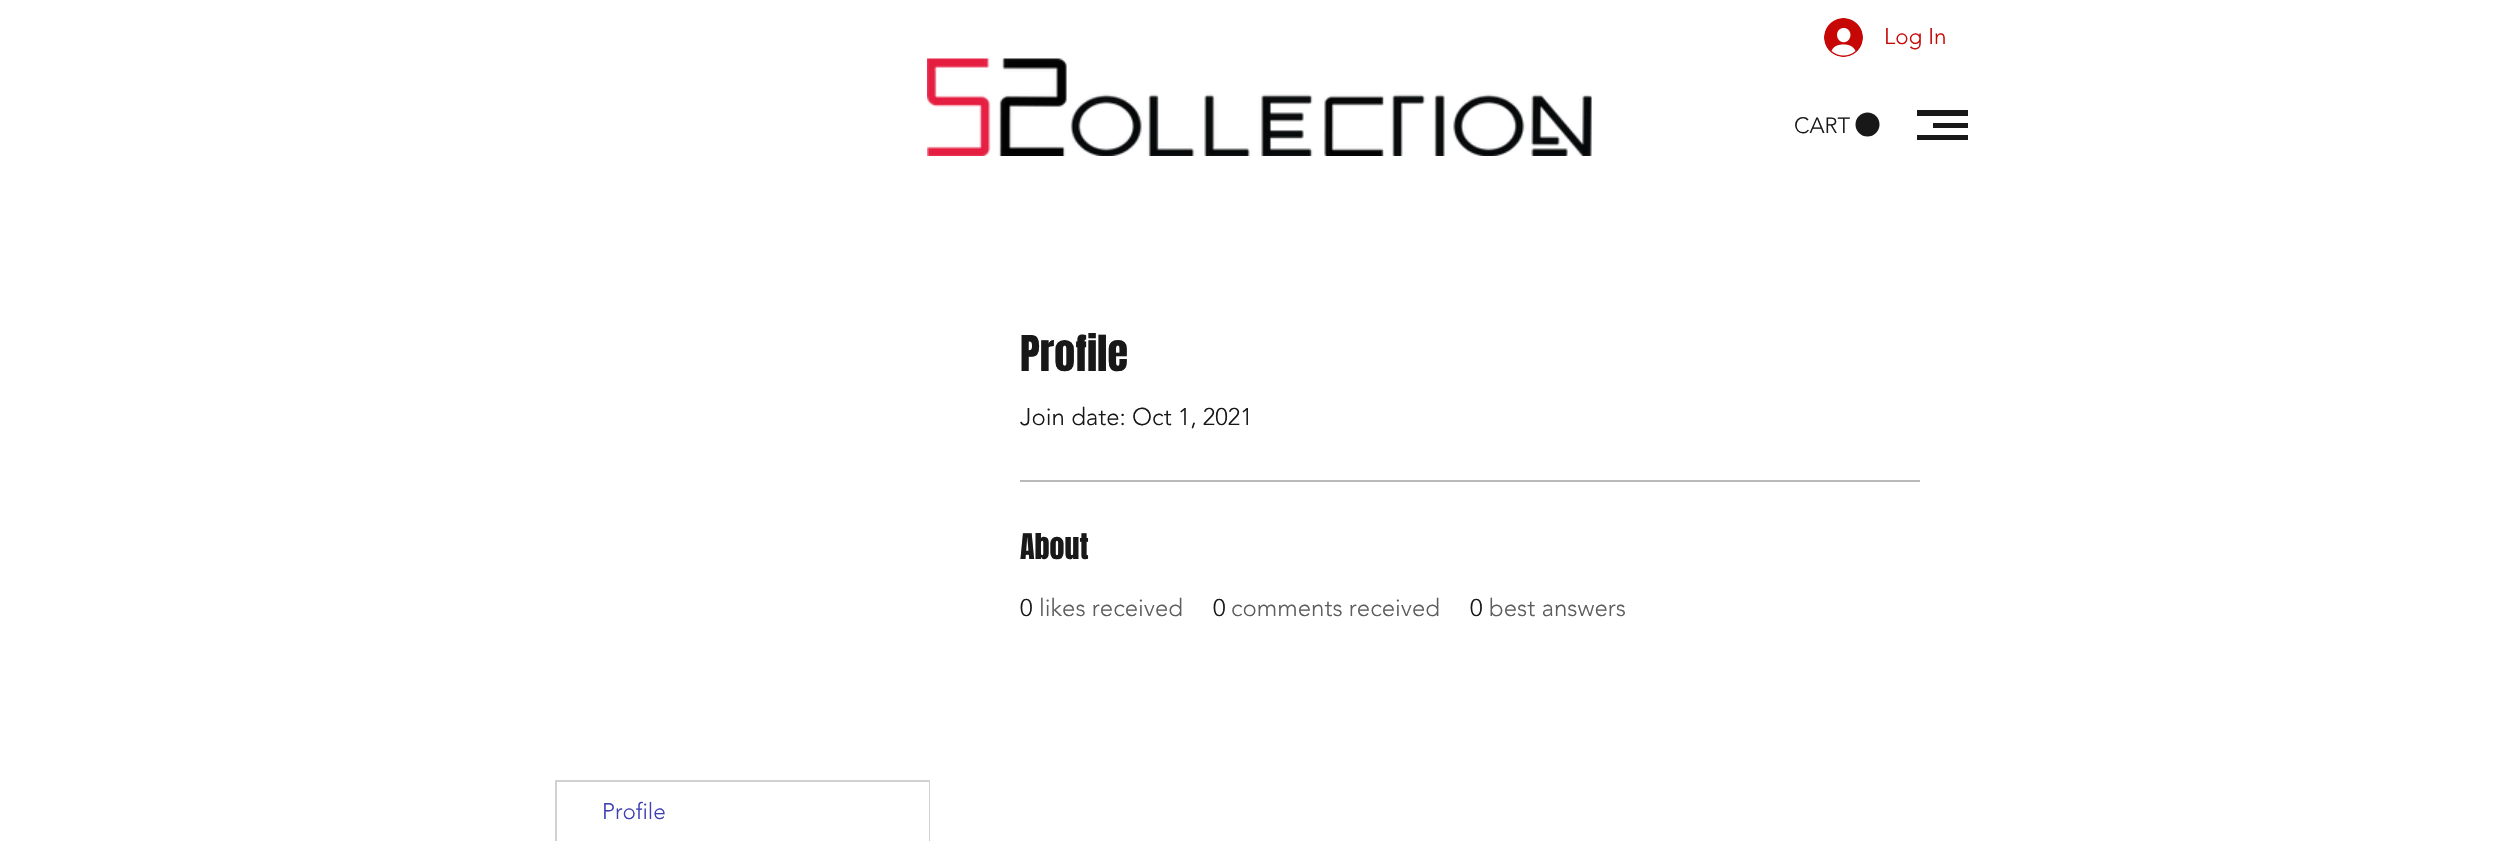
#include "include/core/SkBlurTypes.h"
#include "include/core/SkCanvas.h"
#include "include/core/SkData.h"
#include "include/core/SkFont.h"
#include "include/core/SkFontMgr.h"
#include "include/core/SkImage.h"
#include "include/core/SkMaskFilter.h"
#include "include/core/SkPaint.h"
#include "include/core/SkPathBuilder.h"
#include "include/core/SkTextBlob.h"
#include "include/effects/SkDashPathEffect.h"
#include "include/effects/SkGradientShader.h"
#include "include/utils/SkParsePath.h"

extern sk_sp<SkFontMgr> fontMgr;

static SkFont font(const char* family, int weight, float size, bool italic = false) {
    SkFontStyle style(weight, SkFontStyle::kNormal_Width,
        italic ? SkFontStyle::kItalic_Slant : SkFontStyle::kUpright_Slant);
    SkFont result(fontMgr->matchFamilyStyle(family, style), size);
    result.setSubpixel(true);
    return result;
}

static void drawLabel(SkCanvas* canvas, const char* s, float x, float y, const SkFont& font, SkColor color) {
    SkPaint ink(SkColor4f::FromColor(color));
    ink.setAntiAlias(true);
    canvas->drawString(s, x, y, font, ink);
}

static void fillRect(SkCanvas* canvas, float x, float y, float w, float h, SkColor color) {
    SkPaint ink(SkColor4f::FromColor(color));
    ink.setAntiAlias(true);
    canvas->drawRect(SkRect::MakeXYWH(x, y, w, h), ink);
}

static void drawPhoto(SkCanvas* canvas, const char* path, float x, float y, float w, float h) {
    auto image = SkImages::DeferredFromEncodedData(SkData::MakeFromFileName(path));
    canvas->drawImageRect(image, SkRect::MakeXYWH(x, y, w, h), SkSamplingOptions());
}

void draw(SkCanvas* canvas) {
    SkPaint paint;
    paint.setAntiAlias(true);
    canvas->clear(0xFFFFFFFF);
    drawPhoto(canvas, "assets/img1.png", 1824, 18, 39, 39);
    SkFont font1 = font("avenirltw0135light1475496", 300, 22.5f);
    drawLabel(canvas, "Log In", 1884, 44, font1, 0xFFC70606);
    drawPhoto(canvas, "assets/img2.png", 927, 58, 665, 98);
    paint.setColor(0xFF181818);
    canvas->drawCircle(1867.5f, 124.5f, 12, paint);
    SkFont font2 = font("avenirltw0135light1475496", 300, 22);
    drawLabel(canvas, "CART", 1794, 133, font2, 0xFF181818);
    fillRect(canvas, 1917, 110, 51, 6, 0xFF181818);
    fillRect(canvas, 1933, 123, 35, 5, 0xFF181818);
    fillRect(canvas, 1917, 135, 51, 5, 0xFF181818);
    SkFont font3 = font("Anton", 400, 42);
    drawLabel(canvas, "Profile", 1020, 371, font3, 0xFF181818);
    SkFont font4 = font("avenirltw0135light1475496", 300, 24);
    drawLabel(canvas, "Join date: Oct 1, 2021", 1020, 425, font4, 0xFF181818);
    fillRect(canvas, 1020, 480, 900, 2, 0xFFBABABA);
    SkFont font5 = font("Anton", 400, 30);
    drawLabel(canvas, "About", 1020, 559, font5, 0xFF181818);
    drawLabel(canvas, "0", 1020, 616, font4, 0xFF181818);
    drawLabel(canvas, "likes received", 1039, 616, font4, 0xFF5D5D5D);
    drawLabel(canvas, "0", 1213, 616, font4, 0xFF181818);
    drawLabel(canvas, "comments received", 1231, 616, font4, 0xFF5D5D5D);
    drawLabel(canvas, "0", 1470, 616, font4, 0xFF181818);
    drawLabel(canvas, "best answers", 1489, 616, font4, 0xFF5D5D5D);
    paint.setStroke(true);
    paint.setStrokeWidth(2);
    paint.setColor(0xFFD1D1D1);
    canvas->drawRect(SkRect::MakeXYWH(556, 781, 373, 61), paint);
    fillRect(canvas, 928, 782, 1, 59, 0xFFFFFFFF);
    drawLabel(canvas, "Profile", 602, 819, font1, 0xFF3E40B3);
}
